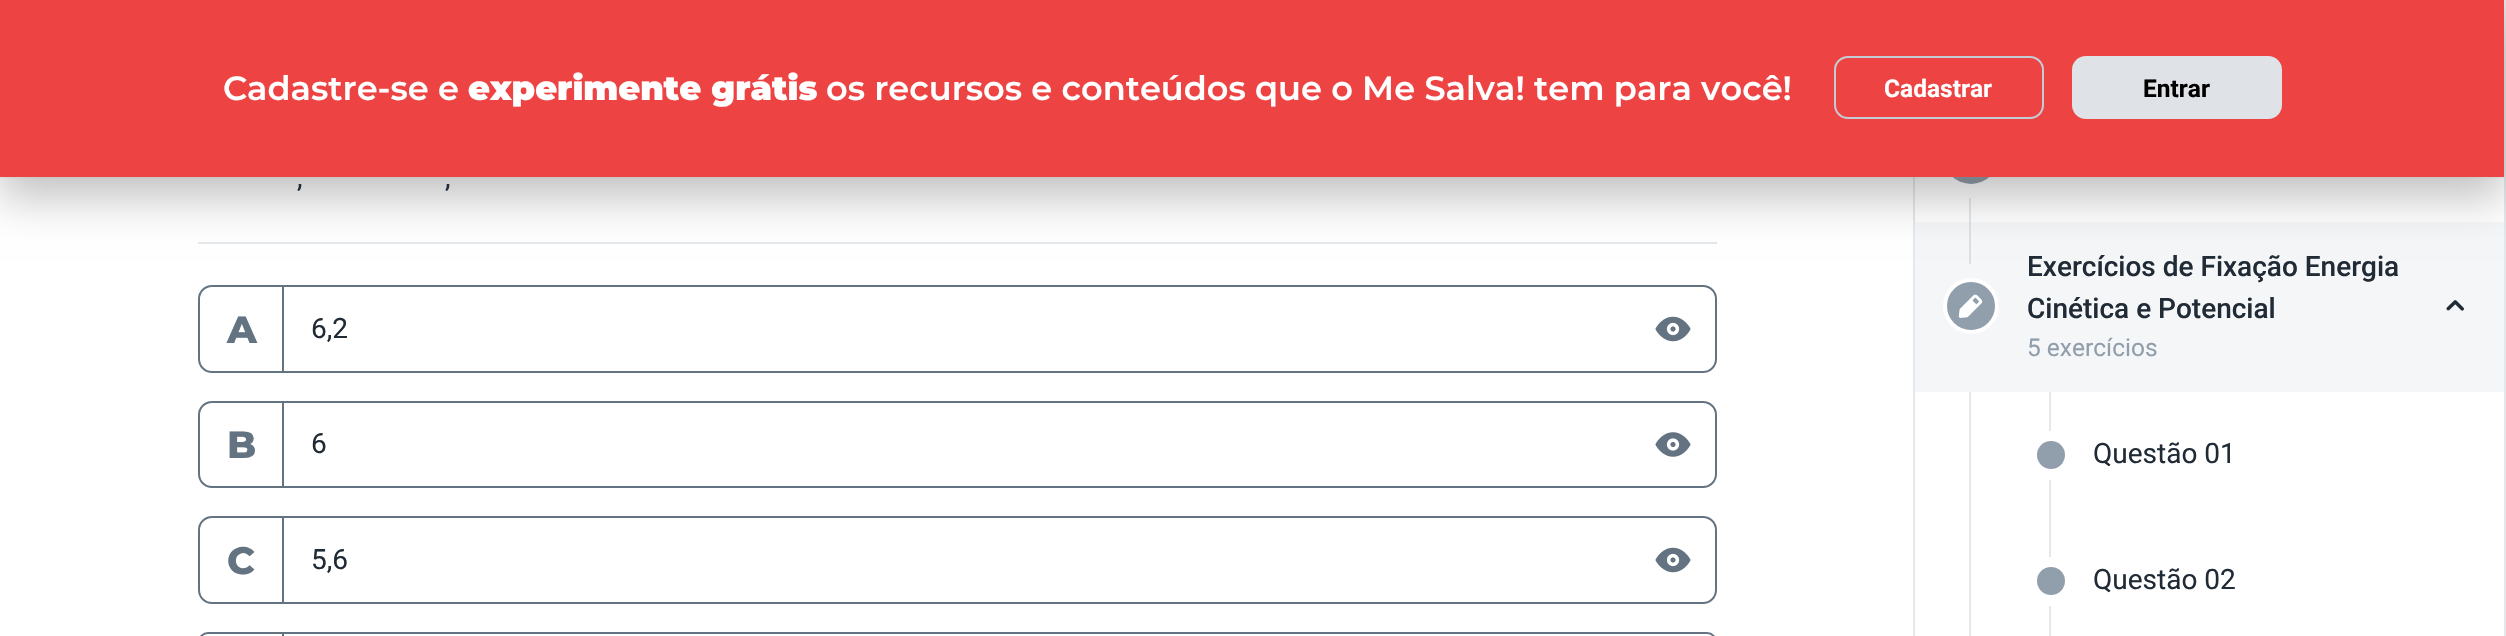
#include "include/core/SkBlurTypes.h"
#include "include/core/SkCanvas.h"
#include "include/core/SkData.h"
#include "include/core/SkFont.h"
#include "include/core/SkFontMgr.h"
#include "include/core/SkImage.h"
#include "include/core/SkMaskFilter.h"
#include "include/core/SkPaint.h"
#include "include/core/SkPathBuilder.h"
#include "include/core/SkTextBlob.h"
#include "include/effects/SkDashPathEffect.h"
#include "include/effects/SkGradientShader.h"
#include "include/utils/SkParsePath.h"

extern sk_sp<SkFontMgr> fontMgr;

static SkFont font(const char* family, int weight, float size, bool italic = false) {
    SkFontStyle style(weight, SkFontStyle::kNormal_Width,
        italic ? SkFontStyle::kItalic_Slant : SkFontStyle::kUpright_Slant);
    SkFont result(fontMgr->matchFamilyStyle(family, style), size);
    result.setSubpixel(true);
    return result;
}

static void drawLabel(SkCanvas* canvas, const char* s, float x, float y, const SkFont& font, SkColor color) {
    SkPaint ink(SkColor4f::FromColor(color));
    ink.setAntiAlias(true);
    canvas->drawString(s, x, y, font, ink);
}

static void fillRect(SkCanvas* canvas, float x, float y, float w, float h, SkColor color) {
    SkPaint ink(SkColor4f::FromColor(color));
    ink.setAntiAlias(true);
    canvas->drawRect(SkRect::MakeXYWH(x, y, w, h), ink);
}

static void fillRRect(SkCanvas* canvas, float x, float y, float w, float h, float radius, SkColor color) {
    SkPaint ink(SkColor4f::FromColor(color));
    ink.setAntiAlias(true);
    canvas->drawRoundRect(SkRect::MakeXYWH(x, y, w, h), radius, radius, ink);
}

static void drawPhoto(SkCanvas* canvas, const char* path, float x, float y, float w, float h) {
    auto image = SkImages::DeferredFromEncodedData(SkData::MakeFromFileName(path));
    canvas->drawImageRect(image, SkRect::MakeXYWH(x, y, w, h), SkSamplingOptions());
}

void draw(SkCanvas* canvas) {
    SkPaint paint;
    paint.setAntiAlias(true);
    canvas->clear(0xFFFFFFFF);
    fillRect(canvas, 2504, 0, 2, 636, 0xFFE5E8EB);
    fillRect(canvas, 198, 242, 1519, 2, 0xFFE5E8EB);
    fillRect(canvas, 1913, 177, 2, 459, 0xFFE5E8EB);
    paint.setColor(0xFF919EAB);
    canvas->drawCircle(1971, 156, 28, paint);
    fillRect(canvas, 1969, 198, 2, 24, 0xFFE5E8EB);
    fillRect(canvas, 1915, 222, 589, 170, 0xFFF4F6F8);
    fillRect(canvas, 1969, 222, 2, 42, 0xFFDCE1E6);
    paint.setColor(0x3D000000);
    paint.setMaskFilter(SkMaskFilter::MakeBlur(kNormal_SkBlurStyle, 21));
    canvas->drawRect(SkRect::MakeXYWH(0, 21, 2504, 177), paint);
    paint.setMaskFilter(nullptr);
    paint.setColor(0x3D929F8E);
    paint.setMaskFilter(SkMaskFilter::MakeBlur(kNormal_SkBlurStyle, 2));
    canvas->drawRect(SkRect::MakeXYWH(0, 0, 2504, 177), paint);
    paint.setMaskFilter(nullptr);
    fillRect(canvas, 0, 0, 2504, 177, 0xFFED4343);
    SkFont font1 = font("Montserrat", 600, 33.6f);
    drawLabel(canvas, "Cadastre-se e", 223, 100, font1, 0xFFFFFFFF);
    SkFont font2 = font("Montserrat", 900, 33.6f);
    drawLabel(canvas, "experimente grátis", 468, 100, font2, 0xFFFFFFFF);
    drawLabel(canvas, "os recursos e conteúdos que o Me Salva! tem para você!", 826, 100, font1, 0xFFFFFFFF);
    paint.setStroke(true);
    paint.setStrokeWidth(2);
    paint.setColor(0xFFC4CDD5);
    canvas->drawRoundRect(SkRect::MakeXYWH(1835, 57, 208, 61), 13, 13, paint);
    SkFont font3 = font("Roboto", 700, 24.5f);
    drawLabel(canvas, "Cadastrar", 1884, 97, font3, 0xFFFFFFFF);
    fillRRect(canvas, 2072, 56, 210, 63, 14, 0xFFDFE3E8);
    drawLabel(canvas, "Entrar", 2143, 97, font3, 0xFF000000);
    SkFont font4 = font("Roboto", 400, 28);
    drawLabel(canvas, ",", 297, 187, font4, 0xFF212B36);
    drawLabel(canvas, ",", 445, 187, font4, 0xFF212B36);
    paint.setColor(0xFF637381);
    canvas->drawRoundRect(SkRect::MakeXYWH(199, 286, 1517, 86), 13, 13, paint);
    fillRect(canvas, 282, 287, 2, 84, 0xFF637381);
    SkFont font5 = font("Montserrat", 800, 38);
    drawLabel(canvas, "A", 227, 343, font5, 0xFF637381);
    drawLabel(canvas, "6,2", 311, 338, font4, 0xFF212B36);
    drawPhoto(canvas, "assets/img1.png", 1655, 316, 36, 26);
    canvas->drawRoundRect(SkRect::MakeXYWH(199, 402, 1517, 85), 13, 13, paint);
    fillRect(canvas, 282, 403, 2, 84, 0xFF637381);
    drawLabel(canvas, "B", 227, 458, font5, 0xFF637381);
    drawLabel(canvas, "6", 311, 453, font4, 0xFF212B36);
    drawPhoto(canvas, "assets/img2.png", 1655, 432, 36, 25);
    canvas->drawRoundRect(SkRect::MakeXYWH(199, 517, 1517, 86), 13, 13, paint);
    fillRect(canvas, 282, 518, 2, 84, 0xFF637381);
    drawLabel(canvas, "C", 227, 574, font5, 0xFF637381);
    drawLabel(canvas, "5,6", 311, 569, font4, 0xFF212B36);
    drawPhoto(canvas, "assets/img1.png", 1655, 547, 36, 26);
    canvas->drawRoundRect(SkRect::MakeXYWH(199, 633, 1517, 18), 13, 13, paint);
    fillRect(canvas, 282, 634, 2, 2, 0xFF637381);
    paint.setStroke(false);
    paint.setColor(0xFF919EAB);
    canvas->drawCircle(1971, 306, 26, paint);
    paint.setStroke(true);
    paint.setStrokeWidth(4);
    paint.setColor(0xFFFFFFFF);
    canvas->drawCircle(1971, 306, 26, paint);
    drawPhoto(canvas, "assets/img3.png", 1958, 294, 25, 24);
    SkFont font6 = font("Roboto", 500, 28);
    drawLabel(canvas, "Exercícios de Fixação Energia", 2027, 276, font6, 0xFF212B36);
    drawLabel(canvas, "Cinética e Potencial", 2027, 318, font6, 0xFF212B36);
    SkFont font7 = font("Roboto", 400, 24.5f);
    drawLabel(canvas, "5 exercícios", 2027, 356, font7, 0xFF919EAB);
    drawPhoto(canvas, "assets/img4.png", 2446, 300, 18, 11);
    fillRect(canvas, 1969, 392, 2, 244, 0xFFE5E8EB);
    paint.setStroke(false);
    paint.setColor(0xFF919EAB);
    canvas->drawCircle(2051, 455, 14, paint);
    fillRect(canvas, 2049, 392, 2, 39, 0xFFE5E8EB);
    fillRect(canvas, 2049, 480, 2, 77, 0xFFE5E8EB);
    drawLabel(canvas, "Questão 01", 2093, 463, font4, 0xFF212B36);
    canvas->drawCircle(2051, 581, 14, paint);
    fillRect(canvas, 2049, 606, 2, 30, 0xFFE5E8EB);
    drawLabel(canvas, "Questão 02", 2093, 589, font4, 0xFF212B36);
}
